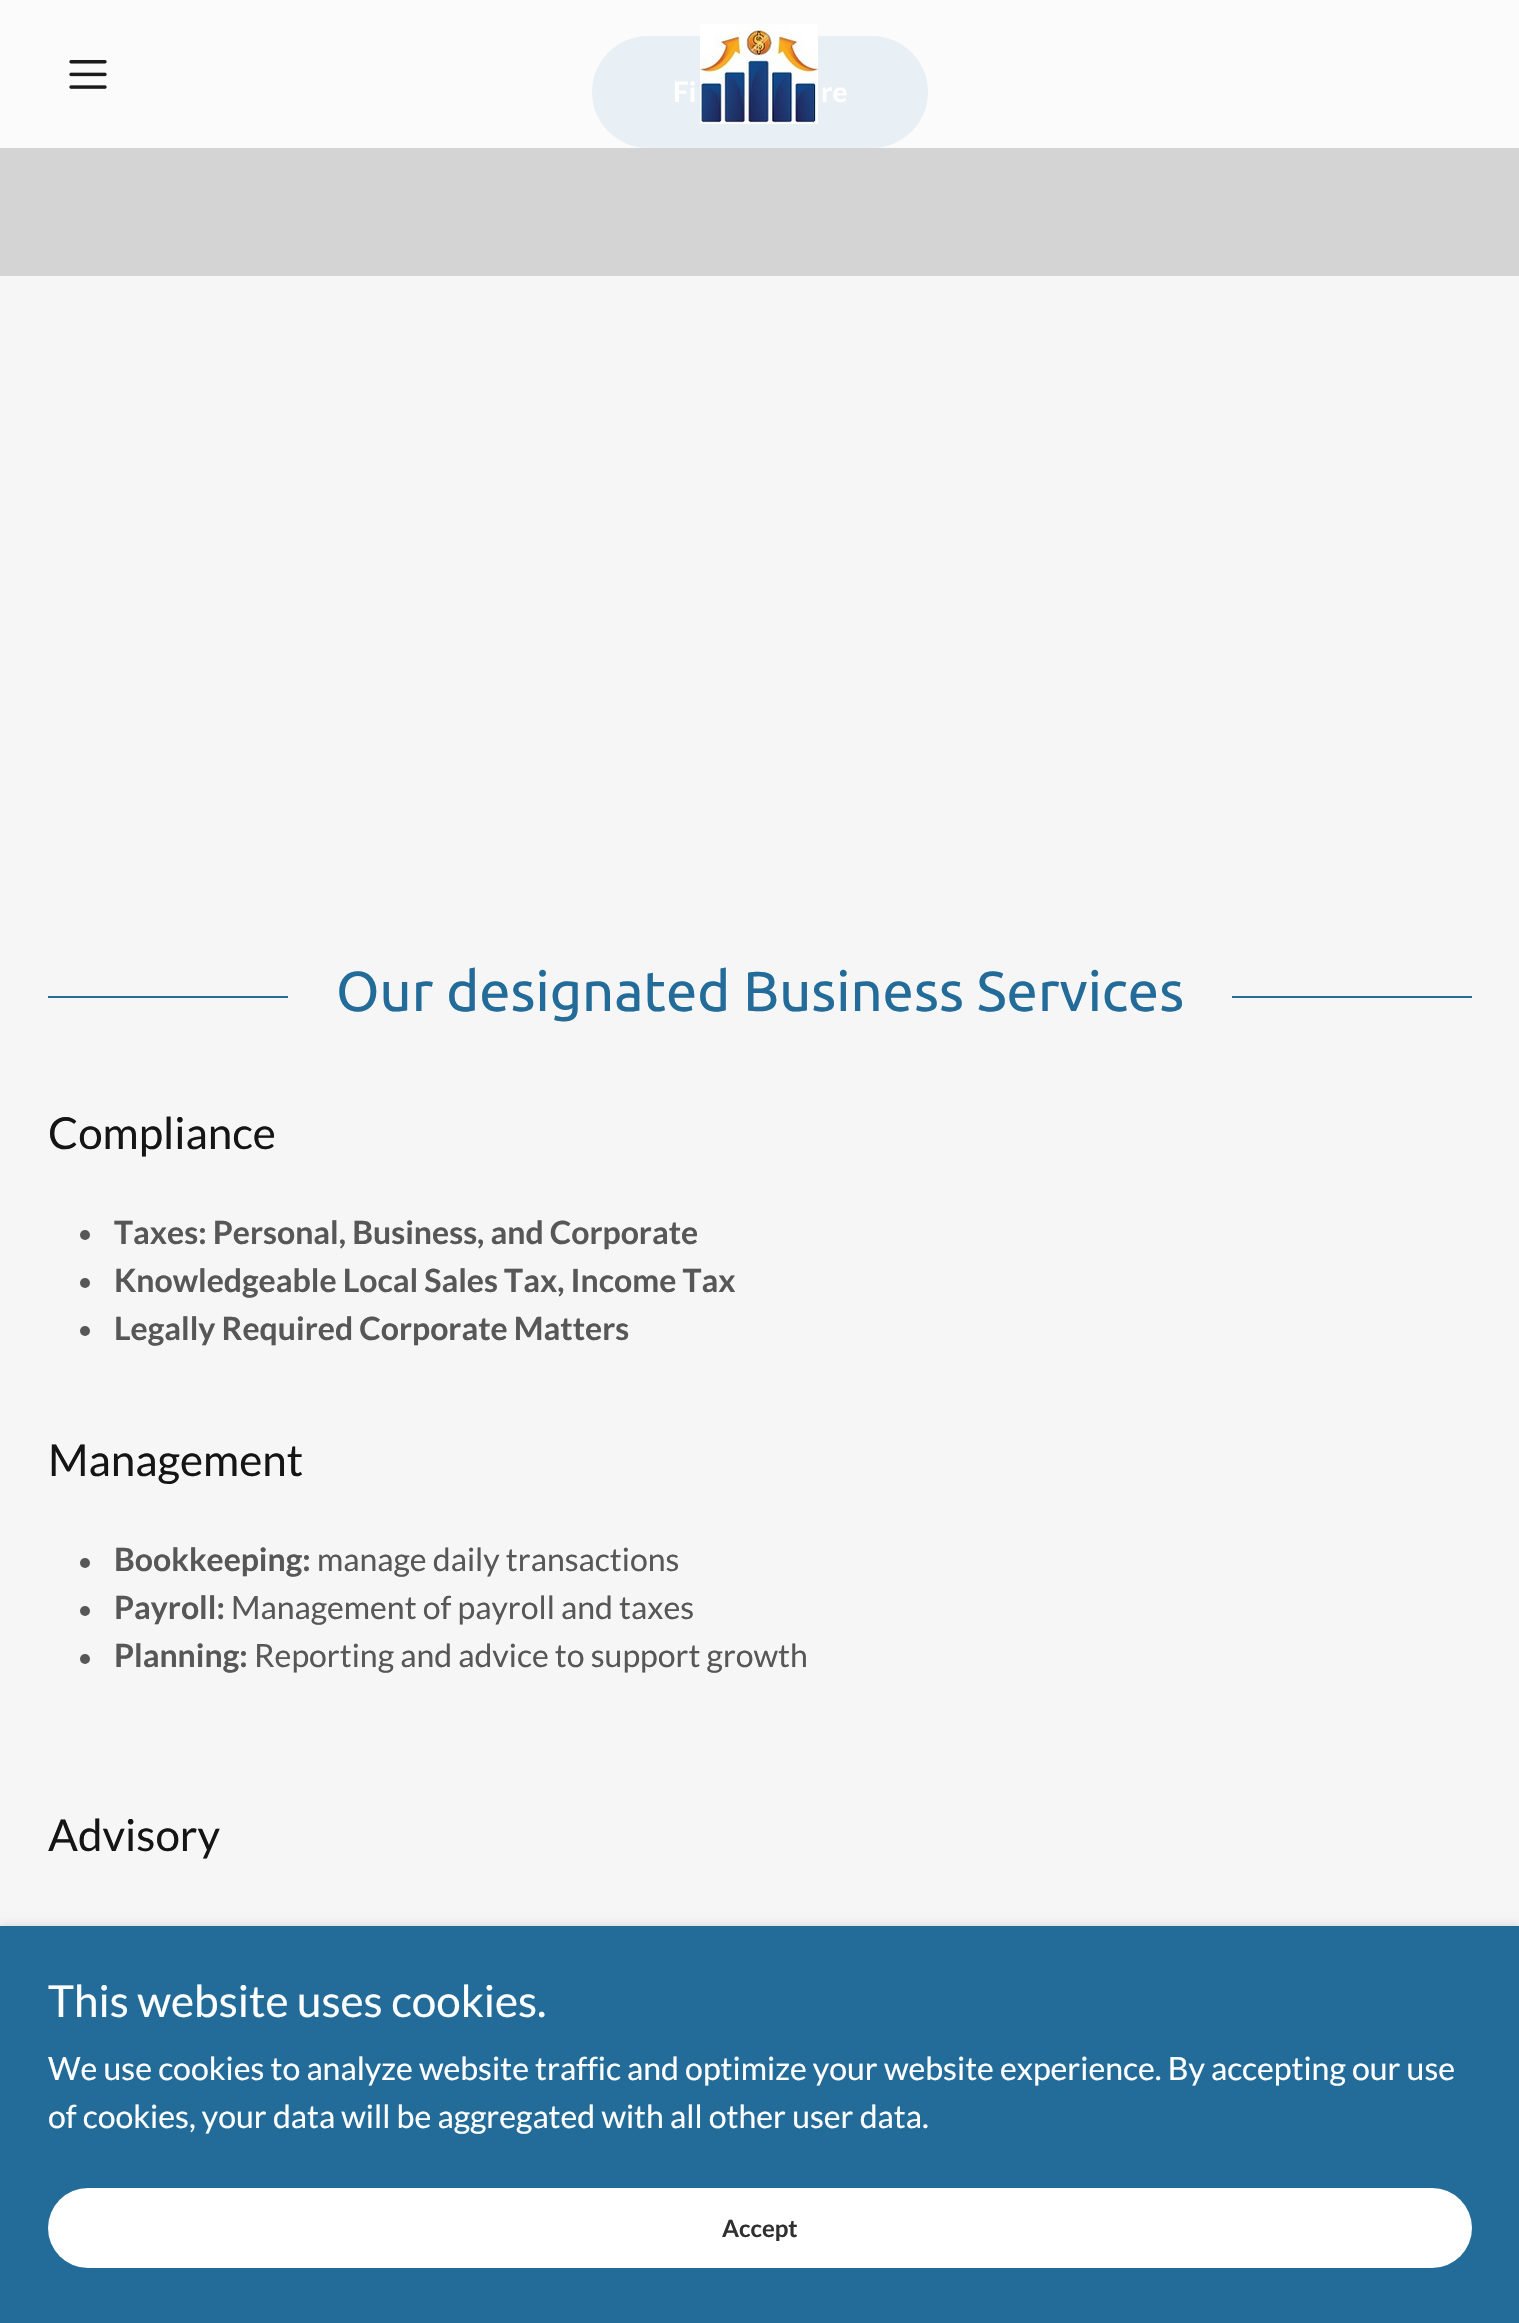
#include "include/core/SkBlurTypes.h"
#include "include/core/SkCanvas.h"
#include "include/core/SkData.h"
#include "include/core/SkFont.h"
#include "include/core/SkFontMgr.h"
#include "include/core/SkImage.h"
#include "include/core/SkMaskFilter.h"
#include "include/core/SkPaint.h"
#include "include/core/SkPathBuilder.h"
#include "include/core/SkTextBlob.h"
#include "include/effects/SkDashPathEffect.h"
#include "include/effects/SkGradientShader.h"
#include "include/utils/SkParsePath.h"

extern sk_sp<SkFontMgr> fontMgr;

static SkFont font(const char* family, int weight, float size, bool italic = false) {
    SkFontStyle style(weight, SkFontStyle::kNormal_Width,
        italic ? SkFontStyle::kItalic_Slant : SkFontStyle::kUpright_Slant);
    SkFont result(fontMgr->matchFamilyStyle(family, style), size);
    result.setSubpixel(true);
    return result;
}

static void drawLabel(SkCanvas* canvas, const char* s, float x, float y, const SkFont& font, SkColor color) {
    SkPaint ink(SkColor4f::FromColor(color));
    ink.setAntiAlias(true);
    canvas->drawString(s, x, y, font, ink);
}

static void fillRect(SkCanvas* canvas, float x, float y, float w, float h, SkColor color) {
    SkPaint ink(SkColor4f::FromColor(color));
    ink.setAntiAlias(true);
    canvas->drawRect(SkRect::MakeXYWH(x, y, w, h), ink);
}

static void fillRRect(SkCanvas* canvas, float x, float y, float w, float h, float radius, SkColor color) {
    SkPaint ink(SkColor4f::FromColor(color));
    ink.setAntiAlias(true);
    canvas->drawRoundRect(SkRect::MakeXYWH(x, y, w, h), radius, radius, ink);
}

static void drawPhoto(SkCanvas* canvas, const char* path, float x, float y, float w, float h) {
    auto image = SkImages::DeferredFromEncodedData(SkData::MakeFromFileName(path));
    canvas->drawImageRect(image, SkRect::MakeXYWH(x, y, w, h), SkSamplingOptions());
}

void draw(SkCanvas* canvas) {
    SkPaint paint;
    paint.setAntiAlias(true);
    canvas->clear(0xFFD4D4D4);
    fillRect(canvas, 0, 0, 1519, 148, 0xFFFBFBFB);
    drawPhoto(canvas, "assets/img1.png", 69, 60, 38, 29);
    fillRRect(canvas, 592, 36, 336, 112, 56, 0xFFE9F0F5);
    drawPhoto(canvas, "assets/img2.png", 700, 24, 118, 100);
    SkFont font1 = font("Lato", 700, 28);
    drawLabel(canvas, "Fi", 673, 102, font1, 0xFFFFFFFF);
    drawLabel(canvas, "re", 821, 102, font1, 0xFFFFFFFF);
    fillRect(canvas, 0, 276, 1519, 1650, 0xFFF6F6F6);
    fillRect(canvas, 48, 996, 240, 2, 0xFF236C99);
    SkFont font2 = font("Ubuntu", 400, 56);
    drawLabel(canvas, "Our designated Business Services", 336, 1011, font2, 0xFF236C99);
    fillRect(canvas, 1232, 996, 240, 2, 0xFF236C99);
    SkFont font3 = font("Lato", 400, 44);
    drawLabel(canvas, "Compliance", 48, 1149, font3, 0xFF151515);
    paint.setColor(0xFF575757);
    canvas->drawCircle(85, 1235, 5, paint);
    SkFont font4 = font("Lato", 700, 32);
    drawLabel(canvas, "Taxes: Personal, Business, and Corporate", 114, 1244, font4, 0xFF575757);
    canvas->drawCircle(85, 1283, 5, paint);
    drawLabel(canvas, "Knowledgeable Local Sales Tax, Income Tax", 114, 1292, font4, 0xFF575757);
    canvas->drawCircle(85, 1331, 5, paint);
    drawLabel(canvas, "Legally Required Corporate Matters", 114, 1340, font4, 0xFF575757);
    drawLabel(canvas, "Management", 48, 1476, font3, 0xFF151515);
    canvas->drawCircle(85, 1563, 5, paint);
    drawLabel(canvas, "Bookkeeping:", 114, 1571, font4, 0xFF575757);
    SkFont font5 = font("Lato", 400, 32);
    drawLabel(canvas, "manage daily transactions", 317, 1571, font5, 0xFF575757);
    canvas->drawCircle(85, 1611, 5, paint);
    drawLabel(canvas, "Payroll:", 114, 1619, font4, 0xFF575757);
    drawLabel(canvas, "Management of payroll and taxes", 231, 1619, font5, 0xFF575757);
    canvas->drawCircle(85, 1659, 5, paint);
    drawLabel(canvas, "Planning:", 114, 1667, font4, 0xFF575757);
    drawLabel(canvas, "Reporting and advice to support growth", 254, 1667, font5, 0xFF575757);
    drawLabel(canvas, "Advisory", 48, 1851, font3, 0xFF151515);
    paint.setColor(0x4D000000);
    paint.setMaskFilter(SkMaskFilter::MakeBlur(kNormal_SkBlurStyle, 6));
    canvas->drawRect(SkRect::MakeXYWH(0, 1930, 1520, 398), paint);
    paint.setMaskFilter(nullptr);
    fillRect(canvas, 0, 1926, 1519, 397, 0xFF236C99);
    drawLabel(canvas, "This website uses cookies.", 48, 2017, font3, 0xFFFFFFFF);
    drawLabel(canvas, "We use cookies to analyze website traffic and optimize your website experience. By accepting our use", 48, 2080, font5, 0xFFFFFFFF);
    drawLabel(canvas, "of cookies, your data will be aggregated with all other user data.", 48, 2128, font5, 0xFFFFFFFF);
    fillRRect(canvas, 48, 2188, 1424, 80, 40, 0xFFFFFFFF);
    SkFont font6 = font("Lato", 700, 24);
    drawLabel(canvas, "Accept", 722, 2237, font6, 0xFF303030);
}
